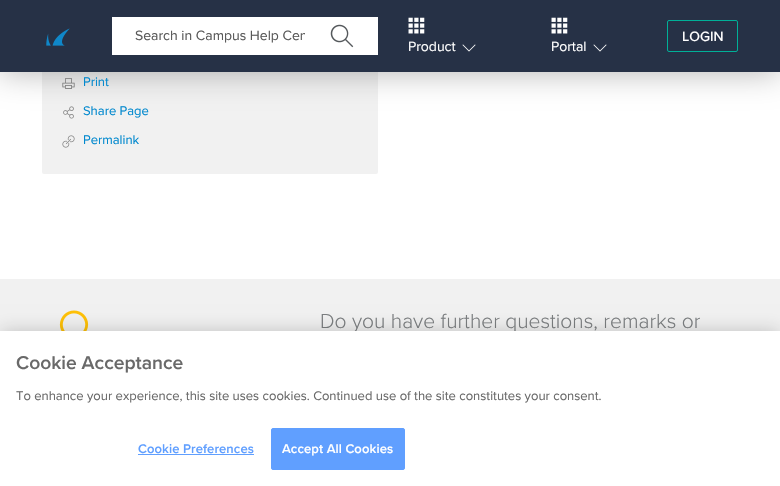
#include "include/core/SkBlurTypes.h"
#include "include/core/SkCanvas.h"
#include "include/core/SkData.h"
#include "include/core/SkFont.h"
#include "include/core/SkFontMgr.h"
#include "include/core/SkImage.h"
#include "include/core/SkMaskFilter.h"
#include "include/core/SkPaint.h"
#include "include/core/SkPathBuilder.h"
#include "include/core/SkTextBlob.h"
#include "include/effects/SkDashPathEffect.h"
#include "include/effects/SkGradientShader.h"
#include "include/utils/SkParsePath.h"

extern sk_sp<SkFontMgr> fontMgr;

static SkFont font(const char* family, int weight, float size, bool italic = false) {
    SkFontStyle style(weight, SkFontStyle::kNormal_Width,
        italic ? SkFontStyle::kItalic_Slant : SkFontStyle::kUpright_Slant);
    SkFont result(fontMgr->matchFamilyStyle(family, style), size);
    result.setSubpixel(true);
    return result;
}

static void drawLabel(SkCanvas* canvas, const char* s, float x, float y, const SkFont& font, SkColor color) {
    SkPaint ink(SkColor4f::FromColor(color));
    ink.setAntiAlias(true);
    canvas->drawString(s, x, y, font, ink);
}

static void drawTracked(SkCanvas* canvas, const char* s, float x, float y, const SkFont& font, const SkPaint& ink, float letter, float word) {
    std::vector<SkGlyphID> glyphs(font.countText(s, strlen(s), SkTextEncoding::kUTF8));
    std::vector<float> xs(glyphs.size());
    font.textToGlyphs(s, strlen(s), SkTextEncoding::kUTF8, glyphs);
    font.getXPos(glyphs, xs, x);
    float extra = 0;
    for (size_t i = 0; i < glyphs.size(); i++) {
        xs[i] += extra;
        extra += letter + word * (glyphs[i] == font.unicharToGlyph(' '));
    }
    canvas->drawTextBlob(SkTextBlob::MakeFromPosHGlyphs(glyphs, xs, y, font), 0, 0, ink);
}

static void fillRect(SkCanvas* canvas, float x, float y, float w, float h, SkColor color) {
    SkPaint ink(SkColor4f::FromColor(color));
    ink.setAntiAlias(true);
    canvas->drawRect(SkRect::MakeXYWH(x, y, w, h), ink);
}

static void fillRRect(SkCanvas* canvas, float x, float y, float w, float h, float radius, SkColor color) {
    SkPaint ink(SkColor4f::FromColor(color));
    ink.setAntiAlias(true);
    canvas->drawRoundRect(SkRect::MakeXYWH(x, y, w, h), radius, radius, ink);
}

static void drawPhoto(SkCanvas* canvas, const char* path, float x, float y, float w, float h) {
    auto image = SkImages::DeferredFromEncodedData(SkData::MakeFromFileName(path));
    canvas->drawImageRect(image, SkRect::MakeXYWH(x, y, w, h), SkSamplingOptions());
}

void draw(SkCanvas* canvas) {
    SkPaint paint;
    paint.setAntiAlias(true);
    canvas->clear(0xFFFFFFFF);
    fillRRect(canvas, 42, -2, 336, 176, 2, 0xFFF1F1F1);
    drawPhoto(canvas, "assets/img5.png", 62, 78, 13, 11);
    drawPhoto(canvas, "assets/img6.png", 63, 106, 11, 13);
    paint.setColor(0x4D000000);
    paint.setMaskFilter(SkMaskFilter::MakeBlur(kNormal_SkBlurStyle, 16));
    canvas->drawRect(SkRect::MakeXYWH(0, 0, 780, 72), paint);
    paint.setMaskFilter(nullptr);
    fillRect(canvas, 0, 0, 780, 72, 0xFF263146);
    drawPhoto(canvas, "assets/img1.png", 46, 28, 24, 18);
    fillRect(canvas, 112, 17, 266, 38, 0xFFFFFFFF);
    canvas->save();
    canvas->clipRect(SkRect::MakeXYWH(135, 25, 170, 21));
    SkFont font1 = font("Proxima Nova", 400, 14);
    drawLabel(canvas, "Search in Campus Help Cen", 135, 40, font1, 0xFF585858);
    canvas->restore();
    drawPhoto(canvas, "assets/img2.png", 330, 24, 24, 24);
    paint.setStroke(true);
    paint.setStrokeWidth(1);
    paint.setColor(0xFF00B098);
    canvas->drawRoundRect(SkRect::MakeXYWH(667.5f, 20.5f, 70, 31), 1.5f, 1.5f, paint);
    SkFont font2 = font("Proxima Nova", 500, 14);
    drawLabel(canvas, "LOGIN", 682, 41, font2, 0xFFFFFFFF);
    drawPhoto(canvas, "assets/img3.png", 408, 17, 17, 17);
    drawLabel(canvas, "Product", 408, 51, font1, 0xFFFFFFFF);
    drawPhoto(canvas, "assets/img4.png", 462, 44, 14, 8);
    drawPhoto(canvas, "assets/img3.png", 551, 17, 17, 17);
    drawLabel(canvas, "Portal", 551, 51, font1, 0xFFFFFFFF);
    drawPhoto(canvas, "assets/img4.png", 593, 44, 14, 8);
    SkFont font3 = font("Proxima Nova", 400, 13);
    drawLabel(canvas, "Print", 83, 86, font3, 0xFF0088CE);
    drawLabel(canvas, "Share Page", 83, 115, font3, 0xFF0088CE);
    drawPhoto(canvas, "assets/img7.png", 62, 135, 13, 13);
    drawLabel(canvas, "Permalink", 83, 144, font3, 0xFF0088CE);
    fillRect(canvas, 0, 279, 780, 52, 0xFFF1F1F1);
    drawPhoto(canvas, "assets/img8.png", 59, 310, 30, 21);
    SkFont font4 = font("Proxima Nova", 300, 21);
    drawLabel(canvas, "Do you have further questions, remarks or", 320, 328, font4, 0xFF7C7F81);
    paint.setStroke(false);
    paint.setColor(0x33000000);
    paint.setMaskFilter(SkMaskFilter::MakeBlur(kNormal_SkBlurStyle, 9));
    canvas->drawRect(SkRect::MakeXYWH(0, 331, 780, 155), paint);
    paint.setMaskFilter(nullptr);
    fillRect(canvas, 0, 331, 780, 155, 0xFFFFFFFF);
    SkFont font5 = font("Proxima Nova", 600, 19.25f);
    drawLabel(canvas, "Cookie Acceptance", 16, 369, font5, 0xFF696969);
    drawLabel(canvas, "To enhance your experience, this site uses cookies. Continued use of the site constitutes your consent.", 16, 400, font3, 0xFF696969);
    SkFont font6 = font("Proxima Nova", 600, 13);
    paint.setColor(0xFF609FFF);
    drawTracked(canvas, "Cookie Preferences", 138, 453, font6, paint, 0.1f, 0);
    fillRect(canvas, 138, 454, 116, 1, 0xFF609FFF);
    canvas->drawRoundRect(SkRect::MakeXYWH(271.5f, 428.5f, 133, 41), 1.5f, 1.5f, paint);
    paint.setStroke(true);
    canvas->drawRoundRect(SkRect::MakeXYWH(271.5f, 428.5f, 133, 41), 1.5f, 1.5f, paint);
    paint.setStroke(false);
    paint.setColor(0xFFFFFFFF);
    drawTracked(canvas, "Accept All Cookies", 282, 453, font6, paint, 0.1f, 0);
}
